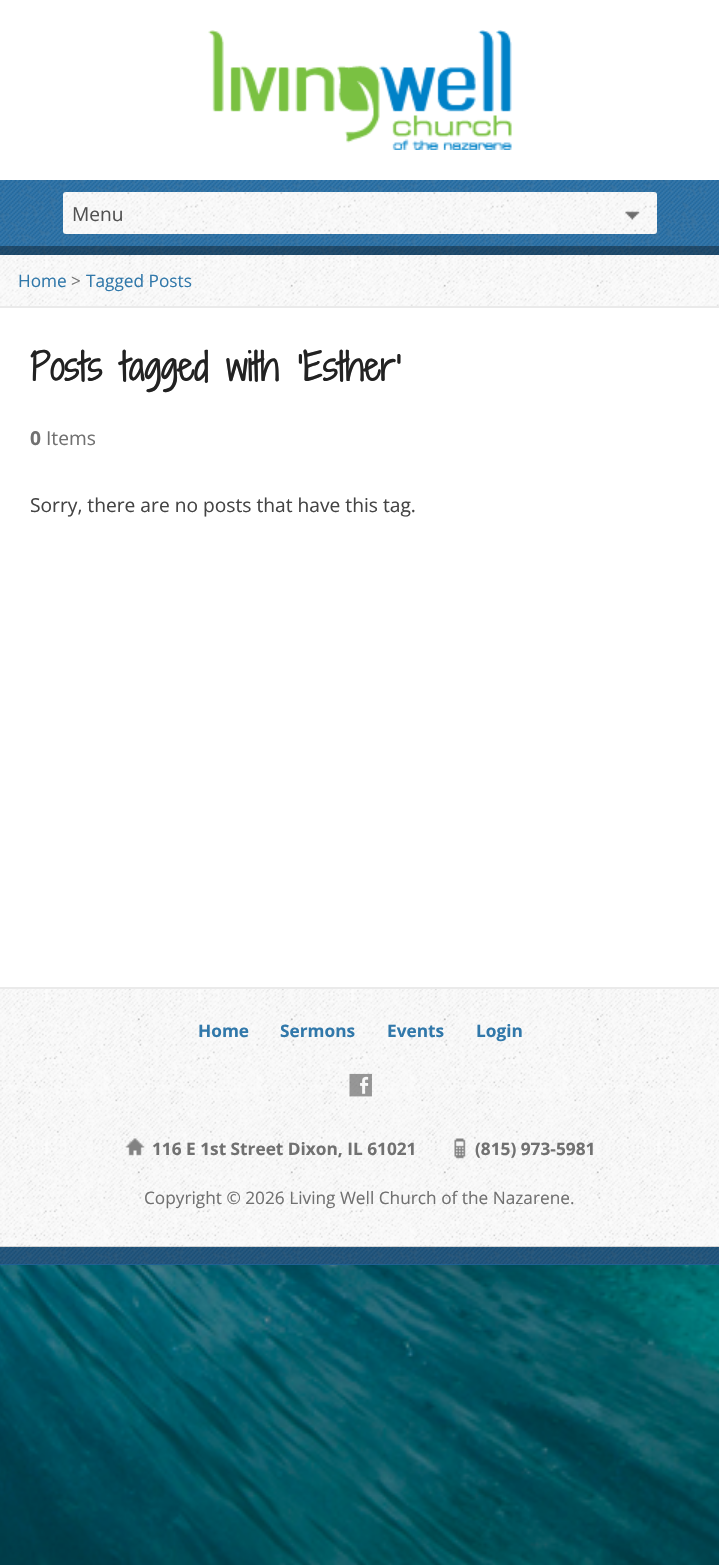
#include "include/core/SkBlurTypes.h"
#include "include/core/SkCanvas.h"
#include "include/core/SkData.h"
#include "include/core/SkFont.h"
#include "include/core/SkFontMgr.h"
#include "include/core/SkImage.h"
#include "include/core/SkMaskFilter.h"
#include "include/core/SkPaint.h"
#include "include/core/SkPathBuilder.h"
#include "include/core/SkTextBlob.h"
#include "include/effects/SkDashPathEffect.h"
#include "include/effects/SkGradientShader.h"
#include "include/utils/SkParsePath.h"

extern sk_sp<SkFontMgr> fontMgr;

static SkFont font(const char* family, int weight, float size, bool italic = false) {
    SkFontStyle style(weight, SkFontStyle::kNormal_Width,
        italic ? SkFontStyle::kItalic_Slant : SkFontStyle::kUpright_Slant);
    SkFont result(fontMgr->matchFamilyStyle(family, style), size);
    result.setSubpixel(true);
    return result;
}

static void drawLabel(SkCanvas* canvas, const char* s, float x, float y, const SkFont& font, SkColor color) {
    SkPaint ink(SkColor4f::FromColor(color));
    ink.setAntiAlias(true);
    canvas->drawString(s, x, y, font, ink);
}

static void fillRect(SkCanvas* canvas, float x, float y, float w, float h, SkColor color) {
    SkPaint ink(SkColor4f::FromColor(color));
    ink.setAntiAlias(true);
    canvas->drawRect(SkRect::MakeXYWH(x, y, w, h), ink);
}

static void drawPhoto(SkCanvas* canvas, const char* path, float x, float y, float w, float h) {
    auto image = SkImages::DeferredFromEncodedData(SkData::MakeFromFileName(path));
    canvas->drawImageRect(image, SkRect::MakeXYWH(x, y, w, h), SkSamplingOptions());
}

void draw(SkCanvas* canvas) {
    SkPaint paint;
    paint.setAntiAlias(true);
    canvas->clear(0xFFFFFFFF);
    drawPhoto(canvas, "assets/img10.png", 0, 1265, 719, 300);
    paint.setColor(0x1F000000);
    paint.setMaskFilter(SkMaskFilter::MakeBlur(kNormal_SkBlurStyle, 15));
    canvas->drawRect(SkRect::MakeXYWH(0, 0, 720, 1265), paint);
    paint.setMaskFilter(nullptr);
    fillRect(canvas, 0, 0, 719, 1247, 0xFFFFFFFF);
    drawPhoto(canvas, "assets/img1.png", 208, 30, 304, 120);
    fillRect(canvas, 0, 180, 719, 75, 0xFF196BAA);
    drawPhoto(canvas, "assets/img2.png", 0, 180, 719, 75);
    drawPhoto(canvas, "assets/img3.png", 63, 192, 594, 42);
    SkFont font1 = font("Open Sans", 400, 19.2f);
    drawLabel(canvas, "Menu", 72, 221, font1, 0xFF515151);
    fillRect(canvas, 0, 246, 719, 9, 0x59000000);
    drawPhoto(canvas, "assets/img4.png", 0, 255, 719, 51);
    fillRect(canvas, 0, 306, 719, 2, 0xFFEAEAEA);
    SkFont font2 = font("Open Sans", 400, 17.25f);
    drawLabel(canvas, "Home", 18, 287, font2, 0xFF3178AA);
    drawLabel(canvas, ">", 71, 287, font2, 0xFF777777);
    drawLabel(canvas, "Tagged Posts", 86, 287, font2, 0xFF3178AA);
    SkFont font3 = font("Shadows Into Light Two", 700, 36.5f);
    drawLabel(canvas, "Posts tagged with ‘Esther’", 30, 381, font3, 0xFF222222);
    SkFont font4 = font("Open Sans", 700, 19.2f);
    drawLabel(canvas, "0", 30, 445, font4, 0xFF717171);
    drawLabel(canvas, "Items", 46, 445, font1, 0xFF717171);
    drawLabel(canvas, "Sorry, there are no posts that have this tag.", 30, 512, font1, 0xFF444444);
    drawPhoto(canvas, "assets/img5.png", 0, 989, 719, 258);
    fillRect(canvas, 0, 987, 719, 2, 0xFFEAEAEA);
    SkFont font5 = font("Open Sans", 700, 17.25f);
    drawLabel(canvas, "Home", 198, 1037, font5, 0xFF3178AA);
    drawLabel(canvas, "Sermons", 280, 1037, font5, 0xFF3178AA);
    drawLabel(canvas, "Events", 387, 1037, font5, 0xFF3178AA);
    drawLabel(canvas, "Login", 476, 1037, font5, 0xFF3178AA);
    drawPhoto(canvas, "assets/img6.png", 349, 1073, 23, 24);
    drawPhoto(canvas, "assets/img7.png", 125, 1138, 20, 18);
    drawLabel(canvas, "116 E 1st Street Dixon, IL 61021", 152, 1155, font5, 0xFF717171);
    drawPhoto(canvas, "assets/img8.png", 454, 1138, 12, 21);
    drawLabel(canvas, "(815) 973-5981", 475, 1155, font5, 0xFF717171);
    drawLabel(canvas, "Copyright © 2026 Living Well Church of the Nazarene.", 144, 1204, font2, 0xFF717171);
    fillRect(canvas, 0, 1247, 719, 18, 0xFF196BAA);
    drawPhoto(canvas, "assets/img9.png", 0, 1246, 719, 19);
}
